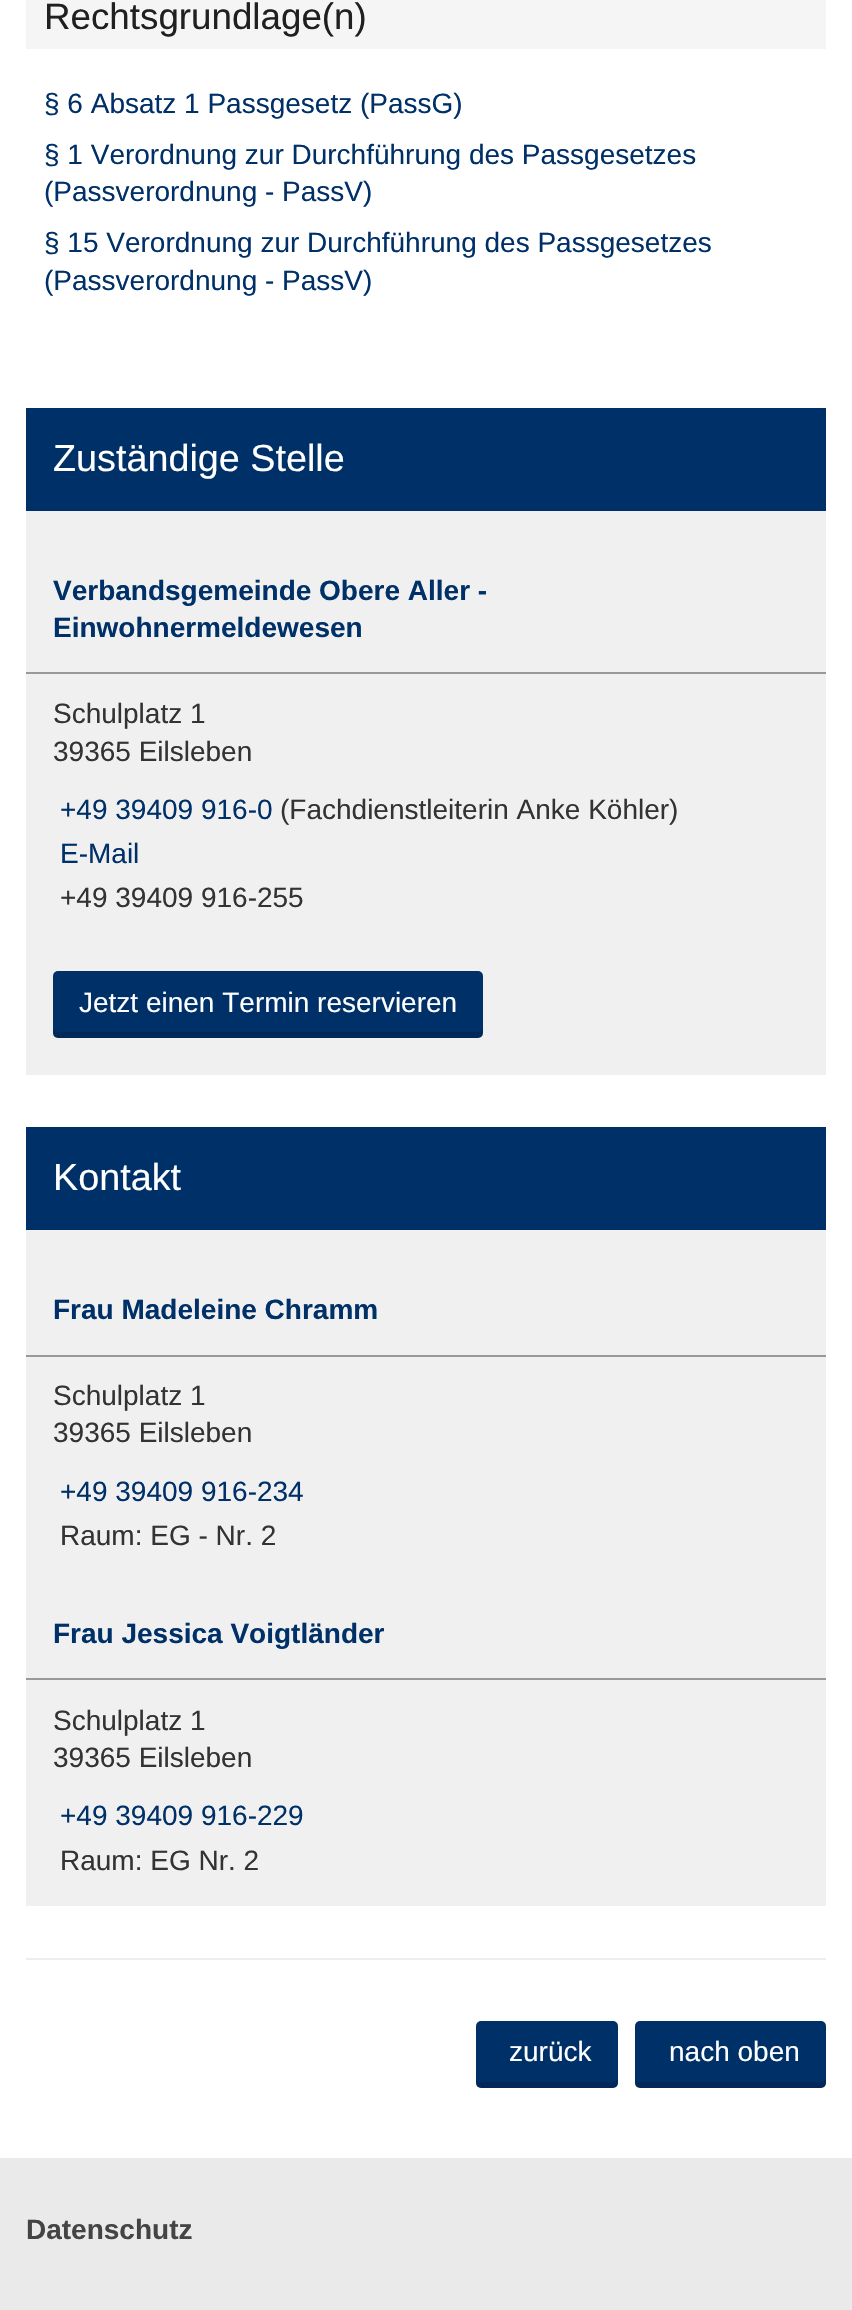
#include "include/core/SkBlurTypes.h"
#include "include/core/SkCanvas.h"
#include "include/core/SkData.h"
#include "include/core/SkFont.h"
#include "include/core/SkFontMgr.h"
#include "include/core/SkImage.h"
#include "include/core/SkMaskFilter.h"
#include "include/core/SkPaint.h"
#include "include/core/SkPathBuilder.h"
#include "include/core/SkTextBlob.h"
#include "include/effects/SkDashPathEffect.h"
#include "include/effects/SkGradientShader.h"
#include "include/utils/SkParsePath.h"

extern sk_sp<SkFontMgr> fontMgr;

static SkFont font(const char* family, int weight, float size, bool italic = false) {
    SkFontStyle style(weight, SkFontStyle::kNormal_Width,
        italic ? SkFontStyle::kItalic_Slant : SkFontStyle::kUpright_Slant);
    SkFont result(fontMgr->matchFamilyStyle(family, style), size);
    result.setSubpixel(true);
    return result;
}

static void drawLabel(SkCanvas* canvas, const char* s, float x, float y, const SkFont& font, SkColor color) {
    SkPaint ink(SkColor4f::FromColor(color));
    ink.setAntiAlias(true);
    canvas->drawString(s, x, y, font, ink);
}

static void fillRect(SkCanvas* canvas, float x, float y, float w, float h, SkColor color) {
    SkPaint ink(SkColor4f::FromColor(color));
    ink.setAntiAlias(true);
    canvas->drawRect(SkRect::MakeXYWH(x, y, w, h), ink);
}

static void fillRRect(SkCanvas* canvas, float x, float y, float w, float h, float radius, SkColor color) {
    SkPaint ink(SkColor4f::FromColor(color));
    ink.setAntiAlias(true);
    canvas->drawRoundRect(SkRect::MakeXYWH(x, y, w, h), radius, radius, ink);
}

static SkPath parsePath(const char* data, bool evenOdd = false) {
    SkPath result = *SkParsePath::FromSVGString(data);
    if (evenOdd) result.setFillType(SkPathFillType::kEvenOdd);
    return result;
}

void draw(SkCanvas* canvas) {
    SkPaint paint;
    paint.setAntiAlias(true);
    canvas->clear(0xFFFFFFFF);
    fillRect(canvas, 26, 0, 800, 49, 0xFFF5F5F5);
    SkFont font1 = font("Liberation Sans", 400, 36.75f);
    drawLabel(canvas, "Rechtsgrundlage(n)", 44, 29, font1, 0xFF202020);
    SkFont font2 = font("Liberation Sans", 400, 28);
    drawLabel(canvas, "§ 6 Absatz 1 Passgesetz (PassG)", 44, 113, font2, 0xFF003068);
    drawLabel(canvas, "§ 1 Verordnung zur Durchführung des Passgesetzes", 44, 164, font2, 0xFF003068);
    drawLabel(canvas, "(Passverordnung - PassV)", 44, 201, font2, 0xFF003068);
    drawLabel(canvas, "§ 15 Verordnung zur Durchführung des Passgesetzes", 44, 252, font2, 0xFF003068);
    drawLabel(canvas, "(Passverordnung - PassV)", 44, 290, font2, 0xFF003068);
    fillRect(canvas, 26, 511, 800, 564, 0xFFF0F0F0);
    fillRect(canvas, 26, 408, 800, 103, 0xFF003068);
    SkFont font3 = font("Liberation Sans", 400, 37.75f);
    drawLabel(canvas, "Zuständige Stelle", 53, 471, font3, 0xFFFFFFFF);
    fillRect(canvas, 26, 672, 800, 2, 0xFF999999);
    SkFont font4 = font("Liberation Sans", 700, 28);
    drawLabel(canvas, "Verbandsgemeinde Obere Aller -", 53, 600, font4, 0xFF003068);
    drawLabel(canvas, "Einwohnermeldewesen", 53, 637, font4, 0xFF003068);
    drawLabel(canvas, "Schulplatz 1", 53, 723, font2, 0xFF333333);
    drawLabel(canvas, "39365 Eilsleben", 53, 761, font2, 0xFF333333);
    drawLabel(canvas, "+49 39409 916-0", 60, 819, font2, 0xFF003068);
    drawLabel(canvas, "(Fachdienstleiterin Anke Köhler)", 280, 819, font2, 0xFF333333);
    drawLabel(canvas, "E-Mail", 60, 863, font2, 0xFF003068);
    drawLabel(canvas, "+49 39409 916-255", 60, 907, font2, 0xFF333333);
    fillRRect(canvas, 53, 971, 430, 67, 5, 0xFF003068);
    paint.setColor(0x26000000);
    canvas->drawPath(parsePath("M53 1030V1033C53 1036 55 1038 58 1038H478C481 1038 483 1036 483 1033V1027C483 1030 481 1032 478 1032H58C56 1032 54 1031 53 1030Z"), paint);
    drawLabel(canvas, "Jetzt einen Termin reservieren", 79, 1012, font2, 0xFFFFFFFF);
    fillRect(canvas, 26, 1230, 800, 676, 0xFFF0F0F0);
    fillRect(canvas, 26, 1127, 800, 103, 0xFF003068);
    drawLabel(canvas, "Kontakt", 53, 1190, font3, 0xFFFFFFFF);
    fillRect(canvas, 26, 1355, 800, 2, 0xFF999999);
    drawLabel(canvas, "Frau Madeleine Chramm", 53, 1319, font4, 0xFF003068);
    drawLabel(canvas, "Schulplatz 1", 53, 1405, font2, 0xFF333333);
    drawLabel(canvas, "39365 Eilsleben", 53, 1442, font2, 0xFF333333);
    drawLabel(canvas, "+49 39409 916-234", 60, 1501, font2, 0xFF003068);
    drawLabel(canvas, "Raum: EG - Nr. 2", 60, 1545, font2, 0xFF333333);
    fillRect(canvas, 26, 1678, 800, 2, 0xFF999999);
    drawLabel(canvas, "Frau Jessica Voigtländer", 53, 1643, font4, 0xFF003068);
    drawLabel(canvas, "Schulplatz 1", 53, 1730, font2, 0xFF333333);
    drawLabel(canvas, "39365 Eilsleben", 53, 1767, font2, 0xFF333333);
    drawLabel(canvas, "+49 39409 916-229", 60, 1825, font2, 0xFF003068);
    drawLabel(canvas, "Raum: EG Nr. 2", 60, 1870, font2, 0xFF333333);
    fillRect(canvas, 26, 1958, 800, 2, 0xFFEEEEEE);
    fillRRect(canvas, 476, 2021, 142, 67, 5, 0xFF003068);
    canvas->drawPath(parsePath("M476 2077V2083C476 2086 478 2088 481 2088H613C616 2088 618 2086 618 2083V2077C618 2080 615 2082 612 2082H481C478 2082 476 2080 476 2077Z"), paint);
    drawLabel(canvas, "zurück", 509, 2061, font2, 0xFFFFFFFF);
    fillRRect(canvas, 635, 2021, 191, 67, 5, 0xFF003068);
    canvas->drawPath(parsePath("M635 2077V2083C635 2086 637 2088 640 2088H821C824 2088 826 2086 826 2083V2077C826 2080 824 2082 821 2082H640C638 2082 635 2080 635 2077Z"), paint);
    drawLabel(canvas, "nach oben", 669, 2061, font2, 0xFFFFFFFF);
    fillRect(canvas, 0, 2158, 852, 152, 0xFFEAEAEA);
    drawLabel(canvas, "Datenschutz", 26, 2239, font4, 0xFF444444);
}
